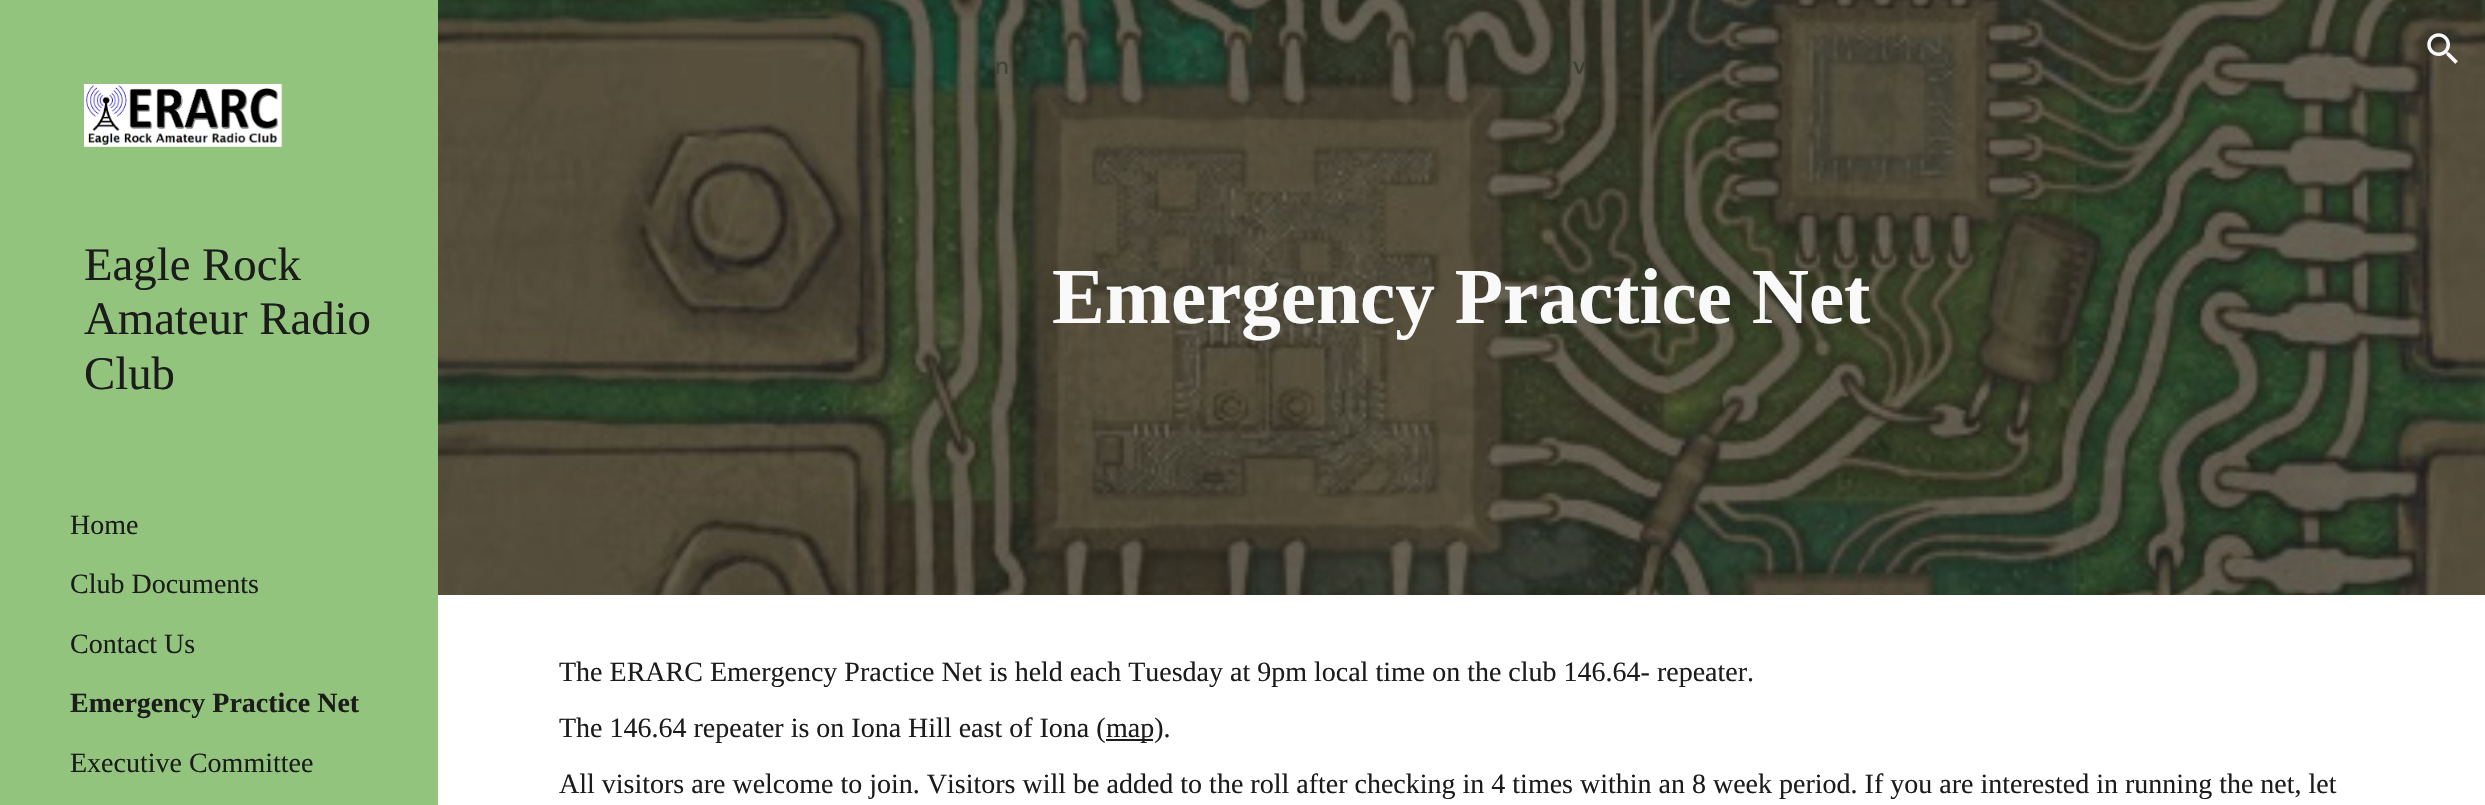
#include "include/core/SkBlurTypes.h"
#include "include/core/SkCanvas.h"
#include "include/core/SkData.h"
#include "include/core/SkFont.h"
#include "include/core/SkFontMgr.h"
#include "include/core/SkImage.h"
#include "include/core/SkMaskFilter.h"
#include "include/core/SkPaint.h"
#include "include/core/SkPathBuilder.h"
#include "include/core/SkTextBlob.h"
#include "include/effects/SkDashPathEffect.h"
#include "include/effects/SkGradientShader.h"
#include "include/utils/SkParsePath.h"

extern sk_sp<SkFontMgr> fontMgr;

static SkFont font(const char* family, int weight, float size, bool italic = false) {
    SkFontStyle style(weight, SkFontStyle::kNormal_Width,
        italic ? SkFontStyle::kItalic_Slant : SkFontStyle::kUpright_Slant);
    SkFont result(fontMgr->matchFamilyStyle(family, style), size);
    result.setSubpixel(true);
    return result;
}

static void drawLabel(SkCanvas* canvas, const char* s, float x, float y, const SkFont& font, SkColor color) {
    SkPaint ink(SkColor4f::FromColor(color));
    ink.setAntiAlias(true);
    canvas->drawString(s, x, y, font, ink);
}

static void fillRect(SkCanvas* canvas, float x, float y, float w, float h, SkColor color) {
    SkPaint ink(SkColor4f::FromColor(color));
    ink.setAntiAlias(true);
    canvas->drawRect(SkRect::MakeXYWH(x, y, w, h), ink);
}

static void drawPhoto(SkCanvas* canvas, const char* path, float x, float y, float w, float h) {
    auto image = SkImages::DeferredFromEncodedData(SkData::MakeFromFileName(path));
    canvas->drawImageRect(image, SkRect::MakeXYWH(x, y, w, h), SkSamplingOptions());
}

void draw(SkCanvas* canvas) {
    SkPaint paint;
    paint.setAntiAlias(true);
    canvas->clear(0xFFFFFFFF);
    drawPhoto(canvas, "assets/img3.png", 438, 0, 2047, 595);
    SkFont font1 = font("Google Sans", 500, 24);
    drawLabel(canvas, "n", 995, 74, font1, 0xFF3C4838);
    drawLabel(canvas, "v", 1573, 74, font1, 0xFF403F32);
    drawPhoto(canvas, "assets/img1.png", 2427, 33, 31, 31);
    fillRect(canvas, 0, 0, 438, 805, 0xFF93C47D);
    drawPhoto(canvas, "assets/img2.png", 84, 84, 199, 63);
    SkFont font2 = font("Liberation Serif", 400, 46.75f);
    drawLabel(canvas, "Eagle Rock", 84, 280, font2, 0xFF1C1C1C);
    drawLabel(canvas, "Amateur Radio", 84, 334, font2, 0xFF1C1C1C);
    drawLabel(canvas, "Club", 84, 389, font2, 0xFF1C1C1C);
    SkFont font3 = font("Liberation Serif", 400, 28);
    drawLabel(canvas, "Home", 70, 534, font3, 0xFF1C1C1C);
    drawLabel(canvas, "Club Documents", 70, 593, font3, 0xFF1C1C1C);
    drawLabel(canvas, "Contact Us", 70, 653, font3, 0xFF1C1C1C);
    SkFont font4 = font("Liberation Serif", 700, 28);
    drawLabel(canvas, "Emergency Practice Net", 70, 712, font4, 0xFF1C1C1C);
    drawLabel(canvas, "Executive Committee", 70, 772, font3, 0xFF1C1C1C);
    SkFont font5 = font("Liberation Serif", 700, 79.25f);
    drawLabel(canvas, "Emergency Practice Net", 1052, 323, font5, 0xFFF9F9F9);
    drawLabel(canvas, "The ERARC Emergency Practice Net is held each Tuesday at 9pm local time on the club 146.64- repeater.", 559, 681, font3, 0xFF1C1C1C);
    drawLabel(canvas, "The 146.64 repeater is on Iona Hill east of Iona (", 559, 737, font3, 0xFF1C1C1C);
    fillRect(canvas, 1106, 739, 47, 2, 0xFF1C1C1C);
    drawLabel(canvas, "map).", 1106, 737, font3, 0xFF1C1C1C);
    drawLabel(canvas, "All visitors are welcome to join. Visitors will be added to the roll after checking in 4 times within an 8 week period. If you are interested in running the net, let", 559, 793, font3, 0xFF1C1C1C);
}
